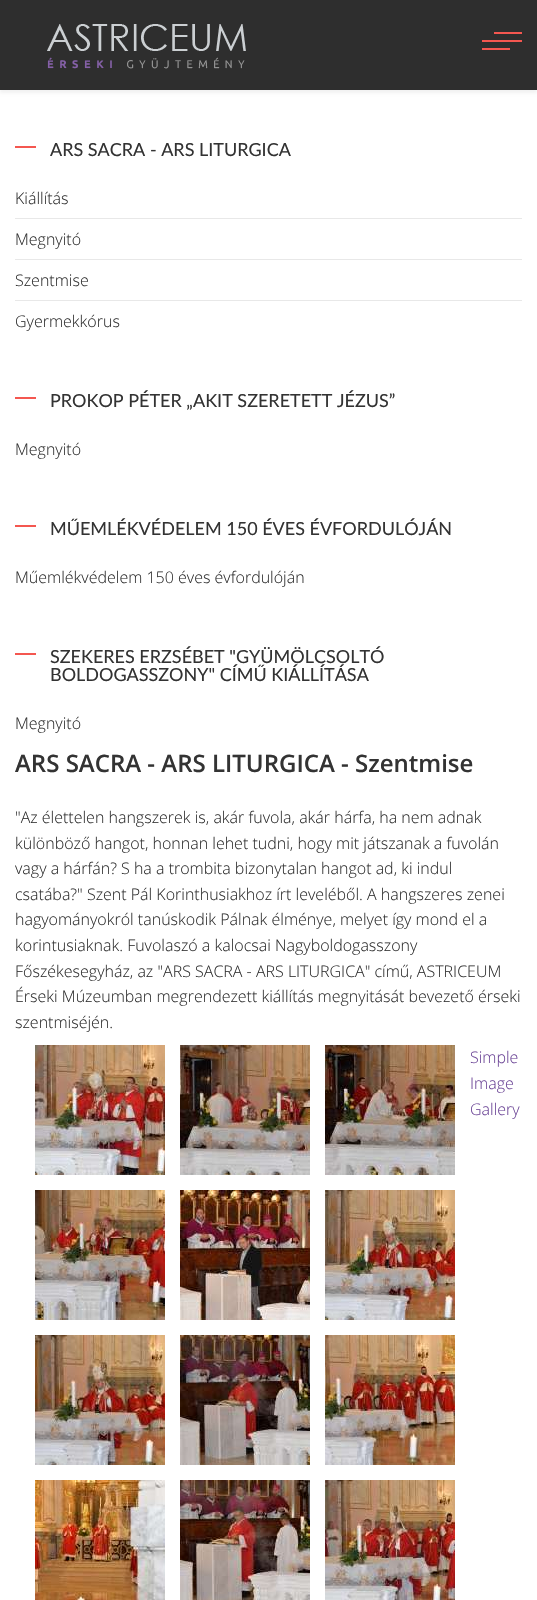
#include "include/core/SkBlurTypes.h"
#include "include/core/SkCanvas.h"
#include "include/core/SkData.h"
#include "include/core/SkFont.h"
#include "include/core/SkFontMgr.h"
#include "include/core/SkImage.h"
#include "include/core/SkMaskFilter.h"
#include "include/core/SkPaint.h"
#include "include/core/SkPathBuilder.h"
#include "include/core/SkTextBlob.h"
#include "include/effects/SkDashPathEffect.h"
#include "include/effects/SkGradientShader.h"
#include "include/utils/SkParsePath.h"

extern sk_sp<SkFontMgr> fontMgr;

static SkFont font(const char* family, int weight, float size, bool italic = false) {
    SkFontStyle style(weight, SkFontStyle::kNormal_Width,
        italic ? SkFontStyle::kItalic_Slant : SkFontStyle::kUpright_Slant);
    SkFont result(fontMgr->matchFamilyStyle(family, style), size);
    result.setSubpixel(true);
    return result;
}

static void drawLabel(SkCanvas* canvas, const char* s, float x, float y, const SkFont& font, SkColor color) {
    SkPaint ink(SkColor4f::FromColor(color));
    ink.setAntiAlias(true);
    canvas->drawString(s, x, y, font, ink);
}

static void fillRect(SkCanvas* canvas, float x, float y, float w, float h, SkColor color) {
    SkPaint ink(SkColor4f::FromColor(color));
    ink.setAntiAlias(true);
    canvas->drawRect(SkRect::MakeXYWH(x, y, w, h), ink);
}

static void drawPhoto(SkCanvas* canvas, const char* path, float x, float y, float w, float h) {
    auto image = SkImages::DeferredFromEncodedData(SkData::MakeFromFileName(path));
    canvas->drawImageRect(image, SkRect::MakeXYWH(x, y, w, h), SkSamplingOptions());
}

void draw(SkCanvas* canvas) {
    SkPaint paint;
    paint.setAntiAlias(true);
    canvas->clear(0xFFFFFFFF);
    paint.setColor(0x0D000000);
    paint.setMaskFilter(SkMaskFilter::MakeBlur(kNormal_SkBlurStyle, 1.5f));
    canvas->drawRect(SkRect::MakeXYWH(0, 3, 537, 90), paint);
    paint.setMaskFilter(nullptr);
    fillRect(canvas, 0, 0, 537, 90, 0xFF2E2E2E);
    drawPhoto(canvas, "assets/img1.png", 47, 24, 199, 45);
    fillRect(canvas, 482, 40, 40, 2, 0xFFF45750);
    fillRect(canvas, 494, 32, 28, 2, 0xFFF45750);
    fillRect(canvas, 482, 48, 28, 2, 0xFFF45750);
    fillRect(canvas, 15, 146, 21, 2, 0xFFF45750);
    SkFont font1 = font("Lato", 400, 18);
    drawLabel(canvas, "ARS SACRA - ARS LITURGICA", 50, 156, font1, 0xFF333333);
    fillRect(canvas, 15, 218, 507, 1, 0xFFE8E8E8);
    SkFont font2 = font("Open Sans", 300, 16);
    drawLabel(canvas, "Kiállítás", 15, 204, font2, 0xFF333333);
    fillRect(canvas, 15, 259, 507, 1, 0xFFE8E8E8);
    drawLabel(canvas, "Megnyitó", 15, 245, font2, 0xFF333333);
    fillRect(canvas, 15, 300, 507, 1, 0xFFE8E8E8);
    drawLabel(canvas, "Szentmise", 15, 286, font2, 0xFF333333);
    drawLabel(canvas, "Gyermekkórus", 15, 327, font2, 0xFF333333);
    fillRect(canvas, 15, 397, 21, 2, 0xFFF45750);
    drawLabel(canvas, "PROKOP PÉTER „AKIT SZERETETT JÉZUS”", 50, 407, font1, 0xFF333333);
    drawLabel(canvas, "Megnyitó", 15, 455, font2, 0xFF333333);
    fillRect(canvas, 15, 525, 21, 2, 0xFFF45750);
    drawLabel(canvas, "MŰEMLÉKVÉDELEM 150 ÉVES ÉVFORDULÓJÁN", 50, 535, font1, 0xFF333333);
    drawLabel(canvas, "Műemlékvédelem 150 éves évfordulóján", 15, 583, font2, 0xFF333333);
    fillRect(canvas, 15, 653, 21, 2, 0xFFF45750);
    drawLabel(canvas, "SZEKERES ERZSÉBET \"GYÜMÖLCSOLTÓ", 50, 663, font1, 0xFF333333);
    drawLabel(canvas, "BOLDOGASSZONY\" CÍMŰ KIÁLLÍTÁSA", 50, 681, font1, 0xFF333333);
    drawLabel(canvas, "Megnyitó", 15, 729, font2, 0xFF333333);
    SkFont font3 = font("Open Sans", 600, 24);
    drawLabel(canvas, "ARS SACRA - ARS LITURGICA - Szentmise", 15, 772, font3, 0xFF333333);
    drawLabel(canvas, "\"Az élettelen hangszerek is, akár fuvola, akár hárfa, ha nem adnak", 15, 823, font2, 0xFF333333);
    drawLabel(canvas, "különböző hangot, honnan lehet tudni, hogy mit játszanak a fuvolán", 15, 849, font2, 0xFF333333);
    drawLabel(canvas, "vagy a hárfán? S ha a trombita bizonytalan hangot ad, ki indul", 15, 874, font2, 0xFF333333);
    drawLabel(canvas, "csatába?\" Szent Pál Korinthusiakhoz írt leveléből. A hangszeres zenei", 15, 900, font2, 0xFF333333);
    drawLabel(canvas, "hagyományokról tanúskodik Pálnak élménye, melyet így mond el a", 15, 925, font2, 0xFF333333);
    drawLabel(canvas, "korintusiaknak. Fuvolaszó a kalocsai Nagyboldogasszony", 15, 951, font2, 0xFF333333);
    drawLabel(canvas, "Főszékesegyház, az \"ARS SACRA - ARS LITURGICA\" című, ASTRICEUM", 15, 977, font2, 0xFF333333);
    drawLabel(canvas, "Érseki Múzeumban megrendezett kiállítás megnyitását bevezető érseki", 15, 1002, font2, 0xFF333333);
    drawLabel(canvas, "szentmiséjén.", 15, 1028, font2, 0xFF333333);
    drawPhoto(canvas, "assets/img2.png", 35, 1045, 130, 130);
    drawPhoto(canvas, "assets/img3.png", 180, 1045, 130, 130);
    drawPhoto(canvas, "assets/img4.png", 325, 1045, 130, 130);
    drawPhoto(canvas, "assets/img5.png", 35, 1190, 130, 130);
    drawPhoto(canvas, "assets/img6.png", 180, 1190, 130, 130);
    drawPhoto(canvas, "assets/img7.png", 325, 1190, 130, 130);
    drawPhoto(canvas, "assets/img8.png", 35, 1335, 130, 130);
    drawPhoto(canvas, "assets/img9.png", 180, 1335, 130, 130);
    drawPhoto(canvas, "assets/img10.png", 325, 1335, 130, 130);
    drawPhoto(canvas, "assets/img11.png", 35, 1480, 130, 120);
    drawPhoto(canvas, "assets/img12.png", 180, 1480, 130, 120);
    drawPhoto(canvas, "assets/img13.png", 325, 1480, 130, 120);
    drawLabel(canvas, "Simple", 470, 1063, font2, 0xFF6E4898);
    drawLabel(canvas, "Image", 470, 1089, font2, 0xFF6E4898);
    drawLabel(canvas, "Gallery", 470, 1115, font2, 0xFF6E4898);
}
